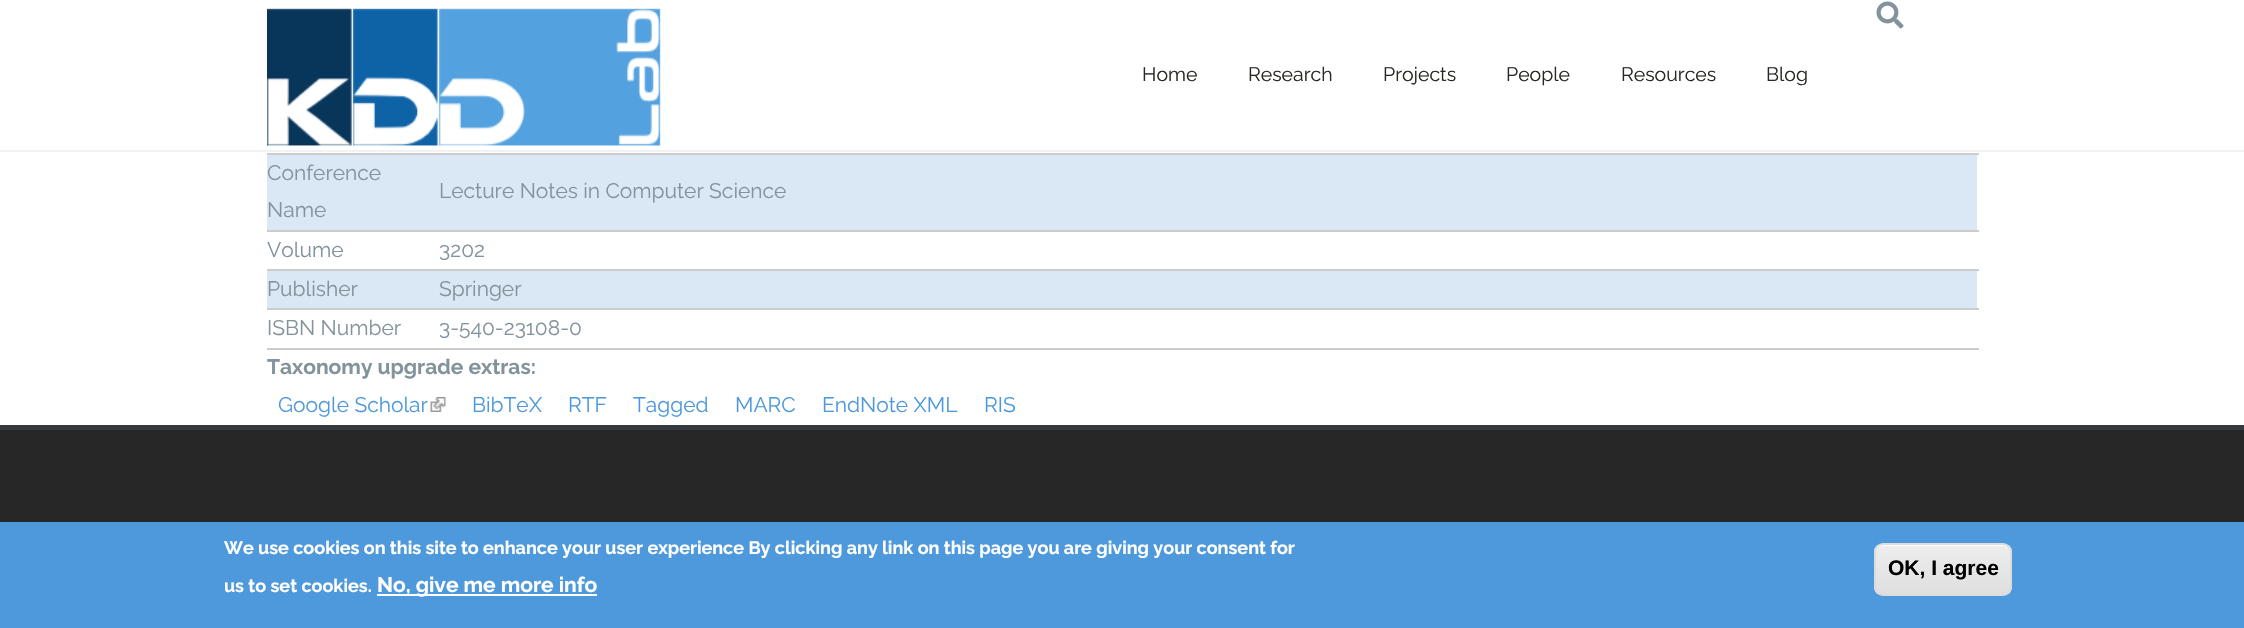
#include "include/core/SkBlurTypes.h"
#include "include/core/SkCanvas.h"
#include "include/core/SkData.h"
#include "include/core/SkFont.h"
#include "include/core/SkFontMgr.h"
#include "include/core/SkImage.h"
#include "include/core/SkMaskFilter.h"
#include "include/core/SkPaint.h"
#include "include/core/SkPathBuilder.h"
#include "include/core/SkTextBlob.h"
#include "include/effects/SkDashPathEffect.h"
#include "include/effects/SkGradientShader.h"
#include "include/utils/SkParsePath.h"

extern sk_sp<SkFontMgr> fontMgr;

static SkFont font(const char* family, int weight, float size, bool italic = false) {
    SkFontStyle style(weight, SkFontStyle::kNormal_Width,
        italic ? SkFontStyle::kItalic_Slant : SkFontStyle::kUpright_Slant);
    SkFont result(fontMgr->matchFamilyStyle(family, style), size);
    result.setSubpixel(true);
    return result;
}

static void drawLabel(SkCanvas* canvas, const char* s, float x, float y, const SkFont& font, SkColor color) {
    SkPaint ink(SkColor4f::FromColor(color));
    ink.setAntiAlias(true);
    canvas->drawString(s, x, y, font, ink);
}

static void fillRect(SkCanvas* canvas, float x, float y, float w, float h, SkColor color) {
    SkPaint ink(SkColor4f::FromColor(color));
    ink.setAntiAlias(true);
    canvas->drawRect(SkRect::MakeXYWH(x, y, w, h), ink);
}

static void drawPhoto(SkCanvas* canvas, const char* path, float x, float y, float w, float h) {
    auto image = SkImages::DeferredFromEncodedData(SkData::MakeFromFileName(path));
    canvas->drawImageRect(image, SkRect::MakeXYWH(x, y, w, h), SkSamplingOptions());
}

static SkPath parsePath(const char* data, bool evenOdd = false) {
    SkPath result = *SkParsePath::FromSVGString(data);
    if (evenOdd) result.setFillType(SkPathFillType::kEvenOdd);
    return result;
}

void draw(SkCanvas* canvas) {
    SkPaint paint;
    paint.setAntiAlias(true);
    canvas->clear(0xFFFFFFFF);
    fillRect(canvas, 0, 150, 2244, 2, 0xFFF2F2F2);
    drawPhoto(canvas, "assets/img1.png", 267, 8, 394, 138);
    SkFont font1 = font("Raleway", 400, 19.5f);
    drawLabel(canvas, "Home", 1142, 81, font1, 0xFF292723);
    drawLabel(canvas, "Research", 1248, 81, font1, 0xFF292723);
    drawLabel(canvas, "Projects", 1383, 81, font1, 0xFF292723);
    drawLabel(canvas, "People", 1506, 81, font1, 0xFF292723);
    drawLabel(canvas, "Resources", 1621, 81, font1, 0xFF292723);
    drawLabel(canvas, "Blog", 1766, 81, font1, 0xFF292723);
    drawPhoto(canvas, "assets/img2.png", 1876, 1, 28, 28);
    fillRect(canvas, 267, 153, 1712, 2, 0xFFCCCCCC);
    fillRect(canvas, 267, 155, 1710, 75, 0xFFDAE8F6);
    fillRect(canvas, 267, 230, 1712, 2, 0xFFCCCCCC);
    SkFont font2 = font("Raleway", 400, 21);
    drawLabel(canvas, "Conference", 267, 180, font2, 0xFF83939C);
    drawLabel(canvas, "Name", 267, 217, font2, 0xFF83939C);
    drawLabel(canvas, "Lecture Notes in Computer Science", 439, 198, font2, 0xFF83939C);
    fillRect(canvas, 267, 269, 1712, 2, 0xFFCCCCCC);
    drawLabel(canvas, "Volume", 267, 257, font2, 0xFF83939C);
    drawLabel(canvas, "3202", 439, 257, font2, 0xFF83939C);
    fillRect(canvas, 267, 271, 1710, 37, 0xFFDAE8F6);
    fillRect(canvas, 267, 308, 1712, 2, 0xFFCCCCCC);
    drawLabel(canvas, "Publisher", 267, 296, font2, 0xFF83939C);
    drawLabel(canvas, "Springer", 439, 296, font2, 0xFF83939C);
    fillRect(canvas, 267, 348, 1712, 2, 0xFFCCCCCC);
    drawLabel(canvas, "ISBN Number", 267, 335, font2, 0xFF83939C);
    drawLabel(canvas, "3-540-23108-0", 439, 335, font2, 0xFF83939C);
    SkFont font3 = font("Raleway", 700, 21);
    drawLabel(canvas, "Taxonomy upgrade extras:", 267, 374, font3, 0xFF83939C);
    drawLabel(canvas, "Google Scholar", 278, 412, font2, 0xFF4E99DC);
    drawPhoto(canvas, "assets/img3.png", 430, 397, 16, 15);
    drawLabel(canvas, "BibTeX", 472, 412, font2, 0xFF4E99DC);
    drawLabel(canvas, "RTF", 568, 412, font2, 0xFF4E99DC);
    drawLabel(canvas, "Tagged", 633, 412, font2, 0xFF4E99DC);
    drawLabel(canvas, "MARC", 735, 412, font2, 0xFF4E99DC);
    drawLabel(canvas, "EndNote XML", 822, 412, font2, 0xFF4E99DC);
    drawLabel(canvas, "RIS", 984, 412, font2, 0xFF4E99DC);
    fillRect(canvas, 0, 430, 2244, 92, 0xFF272727);
    fillRect(canvas, 0, 425, 2244, 5, 0xFF353A3E);
    fillRect(canvas, 0, 522, 2244, 106, 0xFF4E99DC);
    SkFont font4 = font("Raleway", 700, 18);
    drawLabel(canvas, "We use cookies on this site to enhance your user experience By clicking any link on this page you are giving your consent for", 224, 554, font4, 0xFFFFFFFF);
    drawLabel(canvas, "us to set cookies.", 224, 592, font4, 0xFFFFFFFF);
    fillRect(canvas, 377, 594, 220, 2, 0xFFFFFFFF);
    drawLabel(canvas, "No, give me more info", 377, 592, font3, 0xFFFFFFFF);
    canvas->save();
    canvas->clipPath(parsePath("M1883 543H2003C2008 543 2012 547 2012 552V587C2012 592 2008 596 2003 596H1883C1878 596 1874 592 1874 587V552C1874 547 1878 543 1883 543Z"), true);
    {
        const SkColor colors[] = {0xFFEDEDED, 0xFFDFDFDF};
        const float stops[] = {0.05f, 1};
        const SkPoint ends[] = {{1943, 545}, {1943, 594}};
        paint.setShader(SkGradientShader::MakeLinear(ends, colors, stops, 2, SkTileMode::kClamp));
        paint.setAlpha(255);
    }
    canvas->drawRect(SkRect::MakeXYWH(1874, 545, 138, 49), paint);
    canvas->restore();
    paint.setShader(nullptr);
    paint.setColor(0xFFFFFFFF);
    canvas->drawPath(parsePath("M1882 546H2002C2007 546 2010 549 2010 554C2010 540 1990 545 1982 545H1903C1895 545 1875 540 1875 554C1875 549 1878 546 1882 546Z"), paint);
    paint.setStroke(true);
    paint.setStrokeWidth(2);
    paint.setColor(0xFFDCDCDC);
    canvas->drawRoundRect(SkRect::MakeXYWH(1875, 544, 136, 51), 8, 8, paint);
    SkFont font5 = font("Liberation Sans", 700, 21);
    drawLabel(canvas, "OK, I agree", 1888, 575, font5, 0xFF000000);
}
